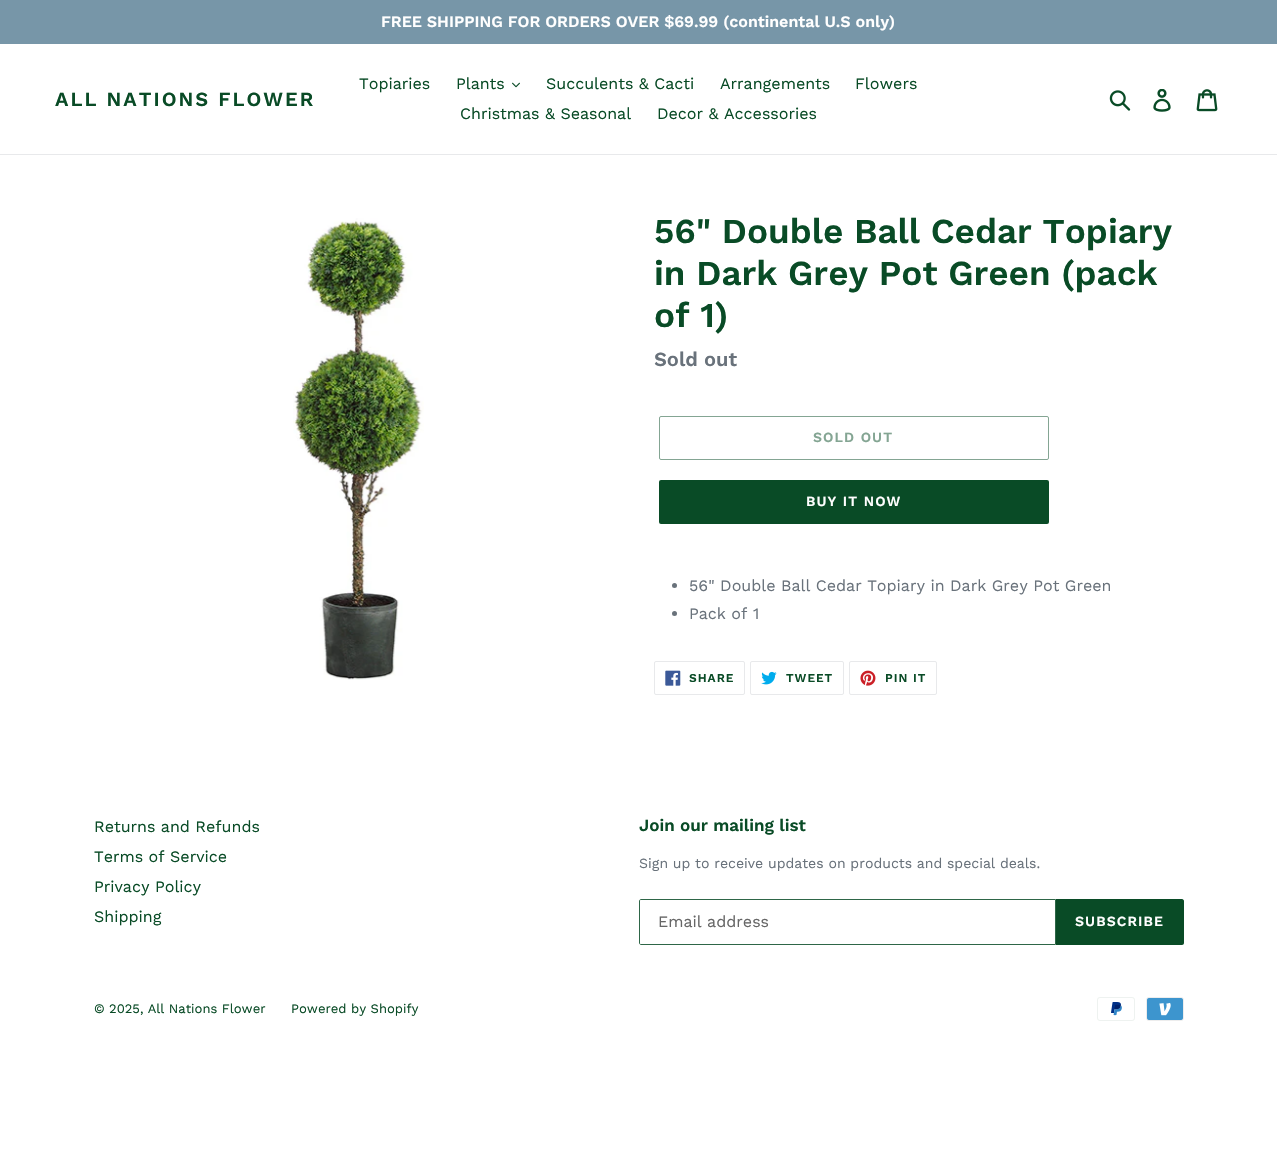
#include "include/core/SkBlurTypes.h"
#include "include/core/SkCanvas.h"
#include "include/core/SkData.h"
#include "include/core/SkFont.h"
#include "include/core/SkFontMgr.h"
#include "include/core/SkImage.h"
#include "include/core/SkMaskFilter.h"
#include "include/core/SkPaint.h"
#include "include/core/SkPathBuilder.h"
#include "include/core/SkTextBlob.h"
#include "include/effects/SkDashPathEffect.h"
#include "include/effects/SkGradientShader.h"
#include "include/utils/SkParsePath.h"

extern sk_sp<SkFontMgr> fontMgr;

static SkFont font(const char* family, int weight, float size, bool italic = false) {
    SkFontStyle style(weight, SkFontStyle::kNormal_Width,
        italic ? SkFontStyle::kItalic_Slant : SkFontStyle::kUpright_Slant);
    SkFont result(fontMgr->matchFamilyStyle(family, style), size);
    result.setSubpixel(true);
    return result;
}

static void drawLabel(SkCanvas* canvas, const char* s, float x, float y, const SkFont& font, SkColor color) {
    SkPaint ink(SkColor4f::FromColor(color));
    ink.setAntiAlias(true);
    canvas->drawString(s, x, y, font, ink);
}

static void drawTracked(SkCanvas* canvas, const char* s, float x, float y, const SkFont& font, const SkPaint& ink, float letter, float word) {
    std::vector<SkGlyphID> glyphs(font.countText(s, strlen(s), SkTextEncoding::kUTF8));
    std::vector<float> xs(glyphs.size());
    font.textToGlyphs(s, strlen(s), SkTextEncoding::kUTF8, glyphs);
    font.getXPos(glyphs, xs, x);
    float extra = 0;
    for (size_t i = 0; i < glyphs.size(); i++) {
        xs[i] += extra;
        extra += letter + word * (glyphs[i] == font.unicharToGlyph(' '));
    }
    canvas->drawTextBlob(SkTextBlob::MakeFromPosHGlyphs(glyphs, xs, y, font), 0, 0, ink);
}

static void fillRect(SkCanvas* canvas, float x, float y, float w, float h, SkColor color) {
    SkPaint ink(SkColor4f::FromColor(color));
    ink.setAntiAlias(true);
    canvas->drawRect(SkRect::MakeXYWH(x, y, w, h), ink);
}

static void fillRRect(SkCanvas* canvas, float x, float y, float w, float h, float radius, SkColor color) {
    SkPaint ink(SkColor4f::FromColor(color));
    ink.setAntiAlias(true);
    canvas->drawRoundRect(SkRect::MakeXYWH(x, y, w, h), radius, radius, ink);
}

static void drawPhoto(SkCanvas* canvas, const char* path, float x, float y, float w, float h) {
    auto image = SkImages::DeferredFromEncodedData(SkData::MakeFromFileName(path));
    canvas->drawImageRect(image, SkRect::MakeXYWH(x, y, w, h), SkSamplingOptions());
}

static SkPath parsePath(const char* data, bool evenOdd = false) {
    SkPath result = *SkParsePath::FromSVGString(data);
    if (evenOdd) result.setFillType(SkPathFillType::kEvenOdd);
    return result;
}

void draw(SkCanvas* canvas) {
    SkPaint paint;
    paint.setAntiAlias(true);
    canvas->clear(0xFFFFFFFF);
    fillRect(canvas, 0, 0, 1277, 44, 0xFF7796A8);
    SkFont font1 = font("Work Sans", 600, 16);
    drawLabel(canvas, "FREE SHIPPING FOR ORDERS OVER $69.99 (continental U.S only)", 381, 27, font1, 0xFFFFFFFF);
    fillRect(canvas, 0, 154, 1277, 1, 0xFFE8E9EB);
    SkFont font2 = font("Work Sans", 600, 20);
    paint.setColor(0xFF094B26);
    drawTracked(canvas, "ALL NATIONS FLOWER", 55, 106, font2, paint, 2, 0);
    SkFont font3 = font("Work Sans", 400, 16);
    drawLabel(canvas, "Topiaries", 359, 89, font3, 0xFF094B26);
    drawLabel(canvas, "Plants", 456, 89, font3, 0xFF094B26);
    drawPhoto(canvas, "assets/img1.png", 512, 82, 8, 6);
    drawLabel(canvas, "Succulents & Cacti", 546, 89, font3, 0xFF094B26);
    drawLabel(canvas, "Arrangements", 720, 89, font3, 0xFF094B26);
    drawLabel(canvas, "Flowers", 855, 89, font3, 0xFF094B26);
    drawLabel(canvas, "Christmas & Seasonal", 460, 119, font3, 0xFF094B26);
    drawLabel(canvas, "Decor & Accessories", 657, 119, font3, 0xFF094B26);
    drawPhoto(canvas, "assets/img2.png", 1109, 90, 22, 21);
    drawPhoto(canvas, "assets/img3.png", 1153, 89, 18, 23);
    drawPhoto(canvas, "assets/img4.png", 1196, 89, 22, 23);
    drawPhoto(canvas, "assets/img5.png", 293, 218, 131, 462);
    SkFont font4 = font("Work Sans", 600, 35);
    drawLabel(canvas, "56\" Double Ball Cedar Topiary", 654, 243, font4, 0xFF094B26);
    drawLabel(canvas, "in Dark Grey Pot Green (pack", 654, 285, font4, 0xFF094B26);
    drawLabel(canvas, "of 1)", 654, 327, font4, 0xFF094B26);
    drawLabel(canvas, "Sold out", 654, 366, font2, 0xFF69727B);
    paint.setStroke(true);
    paint.setStrokeWidth(1);
    paint.setColor(0xFF84A593);
    canvas->drawRoundRect(SkRect::MakeXYWH(659.5f, 416.5f, 389, 43), 1.5f, 1.5f, paint);
    SkFont font5 = font("Work Sans", 600, 14);
    paint.setStroke(false);
    drawTracked(canvas, "SOLD OUT", 813, 442, font5, paint, 1.1f, 0);
    fillRRect(canvas, 659, 480, 390, 44, 2, 0xFF094B26);
    paint.setColor(0xFFFFFFFF);
    drawTracked(canvas, "BUY IT NOW", 806, 506, font5, paint, 1.1f, 0);
    paint.setColor(0xFF69727B);
    canvas->drawCircle(674.5f, 585.5f, 2.5f, paint);
    drawLabel(canvas, "56\" Double Ball Cedar Topiary in Dark Grey Pot Green", 689, 591, font3, 0xFF69727B);
    canvas->drawCircle(674.5f, 613.5f, 2.5f, paint);
    drawLabel(canvas, "Pack of 1", 689, 619, font3, 0xFF69727B);
    paint.setStroke(true);
    paint.setColor(0xFFE8E9EB);
    canvas->drawRoundRect(SkRect::MakeXYWH(654.5f, 661.5f, 90, 33), 1.5f, 1.5f, paint);
    drawPhoto(canvas, "assets/img6.png", 665, 670, 16, 16);
    SkFont font6 = font("Work Sans", 600, 12);
    paint.setStroke(false);
    paint.setColor(0xFF094B26);
    drawTracked(canvas, "SHARE", 689, 682, font6, paint, 1, 0);
    paint.setStroke(true);
    paint.setColor(0xFFE8E9EB);
    canvas->drawRoundRect(SkRect::MakeXYWH(750.5f, 661.5f, 93, 33), 1.5f, 1.5f, paint);
    drawPhoto(canvas, "assets/img7.png", 761, 671, 16, 14);
    paint.setStroke(false);
    paint.setColor(0xFF094B26);
    drawTracked(canvas, "TWEET", 786, 682, font6, paint, 1, 0);
    paint.setStroke(true);
    paint.setColor(0xFFE8E9EB);
    canvas->drawRoundRect(SkRect::MakeXYWH(849.5f, 661.5f, 87, 33), 1.5f, 1.5f, paint);
    drawPhoto(canvas, "assets/img8.png", 860, 670, 16, 16);
    paint.setStroke(false);
    paint.setColor(0xFF094B26);
    drawTracked(canvas, "PIN IT", 885, 682, font6, paint, 1, 0);
    drawLabel(canvas, "Returns and Refunds", 94, 832, font3, 0xFF094B26);
    drawLabel(canvas, "Terms of Service", 94, 862, font3, 0xFF094B26);
    drawLabel(canvas, "Privacy Policy", 94, 892, font3, 0xFF094B26);
    drawLabel(canvas, "Shipping", 94, 922, font3, 0xFF094B26);
    SkFont font7 = font("Work Sans", 600, 17);
    drawLabel(canvas, "Join our mailing list", 639, 831, font7, 0xFF094B26);
    SkFont font8 = font("Work Sans", 400, 14);
    drawLabel(canvas, "Sign up to receive updates on products and special deals.", 639, 868, font8, 0xFF69727B);
    paint.setStroke(true);
    paint.setColor(0xFF2E6647);
    canvas->drawPath(parsePath("M641 899.5H1055.5V944.5H641C640 944.5 639.5 944 639.5 943V901C639.5 900 640 899.5 641 899.5Z"), paint);
    drawLabel(canvas, "Email address", 658, 927, font3, 0xFF666666);
    paint.setStroke(false);
    paint.setColor(0xFF094B26);
    canvas->drawPath(parsePath("M1056 899H1182C1183 899 1184 900 1184 901V943C1184 944 1183 945 1182 945H1056Z"), paint);
    paint.setColor(0xFFFFFFFF);
    drawTracked(canvas, "SUBSCRIBE", 1075, 926, font5, paint, 1.1f, 0);
    SkFont font9 = font("Work Sans", 400, 13);
    drawLabel(canvas, "© 2025, All Nations Flower", 94, 1013, font9, 0xFF094B26);
    drawLabel(canvas, "Powered by Shopify", 291, 1013, font9, 0xFF094B26);
    drawPhoto(canvas, "assets/img9.png", 1097, 997, 38, 24);
    drawPhoto(canvas, "assets/img10.png", 1146, 997, 38, 24);
}
